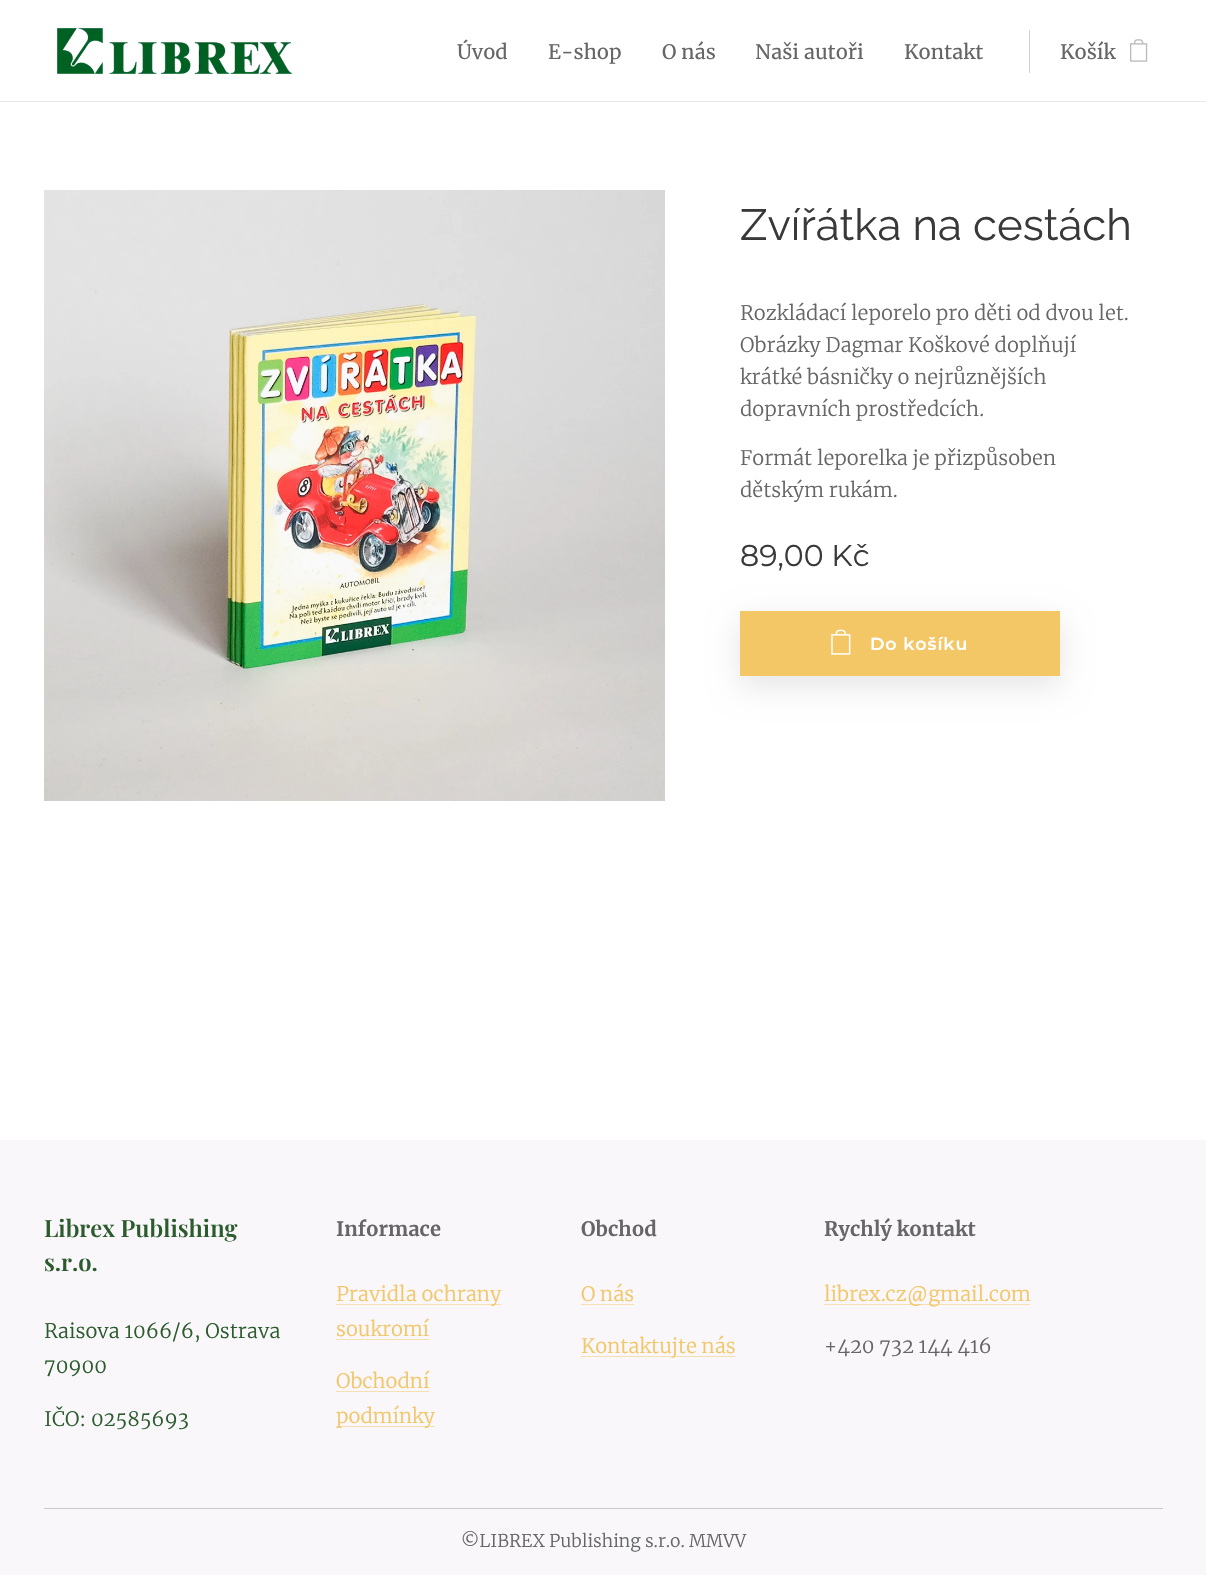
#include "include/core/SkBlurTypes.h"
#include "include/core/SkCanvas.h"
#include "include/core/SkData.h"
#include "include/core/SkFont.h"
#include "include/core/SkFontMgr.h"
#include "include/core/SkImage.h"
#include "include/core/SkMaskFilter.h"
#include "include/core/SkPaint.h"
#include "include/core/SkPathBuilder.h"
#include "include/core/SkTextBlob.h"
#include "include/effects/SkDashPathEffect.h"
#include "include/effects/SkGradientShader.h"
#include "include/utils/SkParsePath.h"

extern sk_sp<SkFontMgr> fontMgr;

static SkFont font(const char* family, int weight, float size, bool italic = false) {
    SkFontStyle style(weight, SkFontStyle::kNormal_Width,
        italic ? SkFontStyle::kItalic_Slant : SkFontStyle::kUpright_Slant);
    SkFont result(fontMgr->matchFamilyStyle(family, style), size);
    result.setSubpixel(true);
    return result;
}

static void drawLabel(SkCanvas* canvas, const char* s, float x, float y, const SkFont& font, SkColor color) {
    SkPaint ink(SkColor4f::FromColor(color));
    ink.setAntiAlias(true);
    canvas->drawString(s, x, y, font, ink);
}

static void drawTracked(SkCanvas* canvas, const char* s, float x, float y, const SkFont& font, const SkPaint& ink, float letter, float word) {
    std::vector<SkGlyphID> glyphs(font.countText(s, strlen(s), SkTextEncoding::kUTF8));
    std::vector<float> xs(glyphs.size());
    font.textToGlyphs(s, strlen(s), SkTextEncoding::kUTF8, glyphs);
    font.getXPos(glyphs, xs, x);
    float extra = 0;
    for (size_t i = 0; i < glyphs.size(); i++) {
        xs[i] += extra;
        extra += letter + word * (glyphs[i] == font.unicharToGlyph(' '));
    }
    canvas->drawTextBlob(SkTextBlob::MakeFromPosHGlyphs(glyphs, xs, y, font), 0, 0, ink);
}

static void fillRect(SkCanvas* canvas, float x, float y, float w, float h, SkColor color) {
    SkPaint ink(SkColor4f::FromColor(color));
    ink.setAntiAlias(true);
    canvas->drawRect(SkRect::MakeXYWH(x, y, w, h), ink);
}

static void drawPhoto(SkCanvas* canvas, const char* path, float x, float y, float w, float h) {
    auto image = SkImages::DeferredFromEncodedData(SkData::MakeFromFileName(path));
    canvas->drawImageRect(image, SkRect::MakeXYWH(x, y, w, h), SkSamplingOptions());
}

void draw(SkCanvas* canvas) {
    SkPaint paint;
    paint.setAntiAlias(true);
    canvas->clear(0xFFFFFFFF);
    drawPhoto(canvas, "assets/img1.png", 57, 27, 235, 48);
    SkFont font1 = font("Merriweather", 400, 20);
    drawLabel(canvas, "Úvod", 457, 59, font1, 0xFF666666);
    drawLabel(canvas, "E-shop", 548, 59, font1, 0xFF666666);
    drawLabel(canvas, "O nás", 662, 59, font1, 0xFF666666);
    drawLabel(canvas, "Naši autoři", 755, 59, font1, 0xFF666666);
    drawLabel(canvas, "Kontakt", 904, 59, font1, 0xFF666666);
    fillRect(canvas, 1029, 30, 1, 43, 0xFFD1D1D1);
    drawLabel(canvas, "Košík", 1060, 59, font1, 0xFF666666);
    drawPhoto(canvas, "assets/img2.png", 1130, 39, 18, 23);
    fillRect(canvas, 0, 101, 1206, 1, 0xFFE8E8E8);
    drawPhoto(canvas, "assets/img3.png", 44, 190, 621, 611);
    SkFont font2 = font("Raleway", 400, 43.75f);
    drawLabel(canvas, "Zvířátka na cestách", 740, 240, font2, 0xFF393939);
    SkFont font3 = font("Merriweather", 300, 20);
    drawLabel(canvas, "Rozkládací leporelo pro děti od dvou let.", 740, 320, font3, 0xFF666666);
    drawLabel(canvas, "Obrázky Dagmar Koškové doplňují", 740, 352, font3, 0xFF666666);
    drawLabel(canvas, "krátké básničky o nejrůznějších", 740, 384, font3, 0xFF666666);
    drawLabel(canvas, "dopravních prostředcích.", 740, 416, font3, 0xFF666666);
    drawLabel(canvas, "Formát leporelka je přizpůsoben", 740, 465, font3, 0xFF666666);
    drawLabel(canvas, "dětským rukám.", 740, 497, font3, 0xFF666666);
    SkFont font4 = font("Montserrat", 400, 30);
    drawLabel(canvas, "89,00 Kč", 740, 566, font4, 0xFF393939);
    paint.setColor(0x1A000000);
    paint.setMaskFilter(SkMaskFilter::MakeBlur(kNormal_SkBlurStyle, 15.5f));
    canvas->drawRect(SkRect::MakeXYWH(740, 621, 320, 65), paint);
    paint.setMaskFilter(nullptr);
    fillRect(canvas, 740, 611, 320, 65, 0xFFF3C666);
    drawPhoto(canvas, "assets/img4.png", 831, 629, 20, 26);
    SkFont font5 = font("Montserrat", 600, 17.5f);
    paint.setColor(0xFFFFFFFF);
    drawTracked(canvas, "Do košíku", 870, 650, font5, paint, 0.9f, 0);
    fillRect(canvas, 0, 1140, 1206, 435, 0xFFF9F7FA);
    SkFont font6 = font("Playfair Display", 600, 23.75f);
    drawLabel(canvas, "Librex Publishing", 44, 1237, font6, 0xFF2C5B2D);
    drawLabel(canvas, "s.r.o.", 44, 1271, font6, 0xFF2C5B2D);
    drawLabel(canvas, "Raisova 1066/6, Ostrava", 44, 1338, font3, 0xFF2C5B2D);
    drawLabel(canvas, "70900", 44, 1373, font3, 0xFF2C5B2D);
    drawLabel(canvas, "IČO: 02585693", 44, 1426, font3, 0xFF2C5B2D);
    SkFont font7 = font("Merriweather", 700, 20);
    drawLabel(canvas, "Informace", 336, 1236, font7, 0xFF666666);
    fillRect(canvas, 336, 1304, 165, 1, 0xFFF6DFB0);
    drawLabel(canvas, "Pravidla ochrany", 336, 1301, font3, 0xFFF3C666);
    drawLabel(canvas, "soukromí", 336, 1336, font3, 0xFFF3C666);
    fillRect(canvas, 336, 1339, 93, 1, 0xFFF6DFB0);
    drawLabel(canvas, "Obchodní", 336, 1388, font3, 0xFFF3C666);
    fillRect(canvas, 336, 1391, 93, 1, 0xFFF6DFB0);
    fillRect(canvas, 336, 1426, 99, 1, 0xFFF6DFB0);
    drawLabel(canvas, "podmínky", 336, 1423, font3, 0xFFF3C666);
    drawLabel(canvas, "Obchod", 581, 1236, font7, 0xFF666666);
    drawLabel(canvas, "O nás", 581, 1301, font3, 0xFFF3C666);
    fillRect(canvas, 581, 1304, 53, 1, 0xFFF6DFB0);
    fillRect(canvas, 581, 1356, 154, 1, 0xFFF6DFB0);
    drawLabel(canvas, "Kontaktujte nás", 581, 1353, font3, 0xFFF3C666);
    drawLabel(canvas, "Rychlý kontakt", 824, 1236, font7, 0xFF666666);
    fillRect(canvas, 824, 1304, 206, 1, 0xFFF6DFB0);
    drawLabel(canvas, "librex.cz@gmail.com", 824, 1301, font3, 0xFFF3C666);
    drawLabel(canvas, "+420 732 144 416", 824, 1353, font3, 0xFF666666);
    fillRect(canvas, 44, 1508, 1119, 1, 0xFFC9C9C9);
    SkFont font8 = font("Merriweather", 300, 17.5f);
    drawLabel(canvas, "©LIBREX Publishing s.r.o. MMVV", 461, 1547, font8, 0xFF666666);
}
